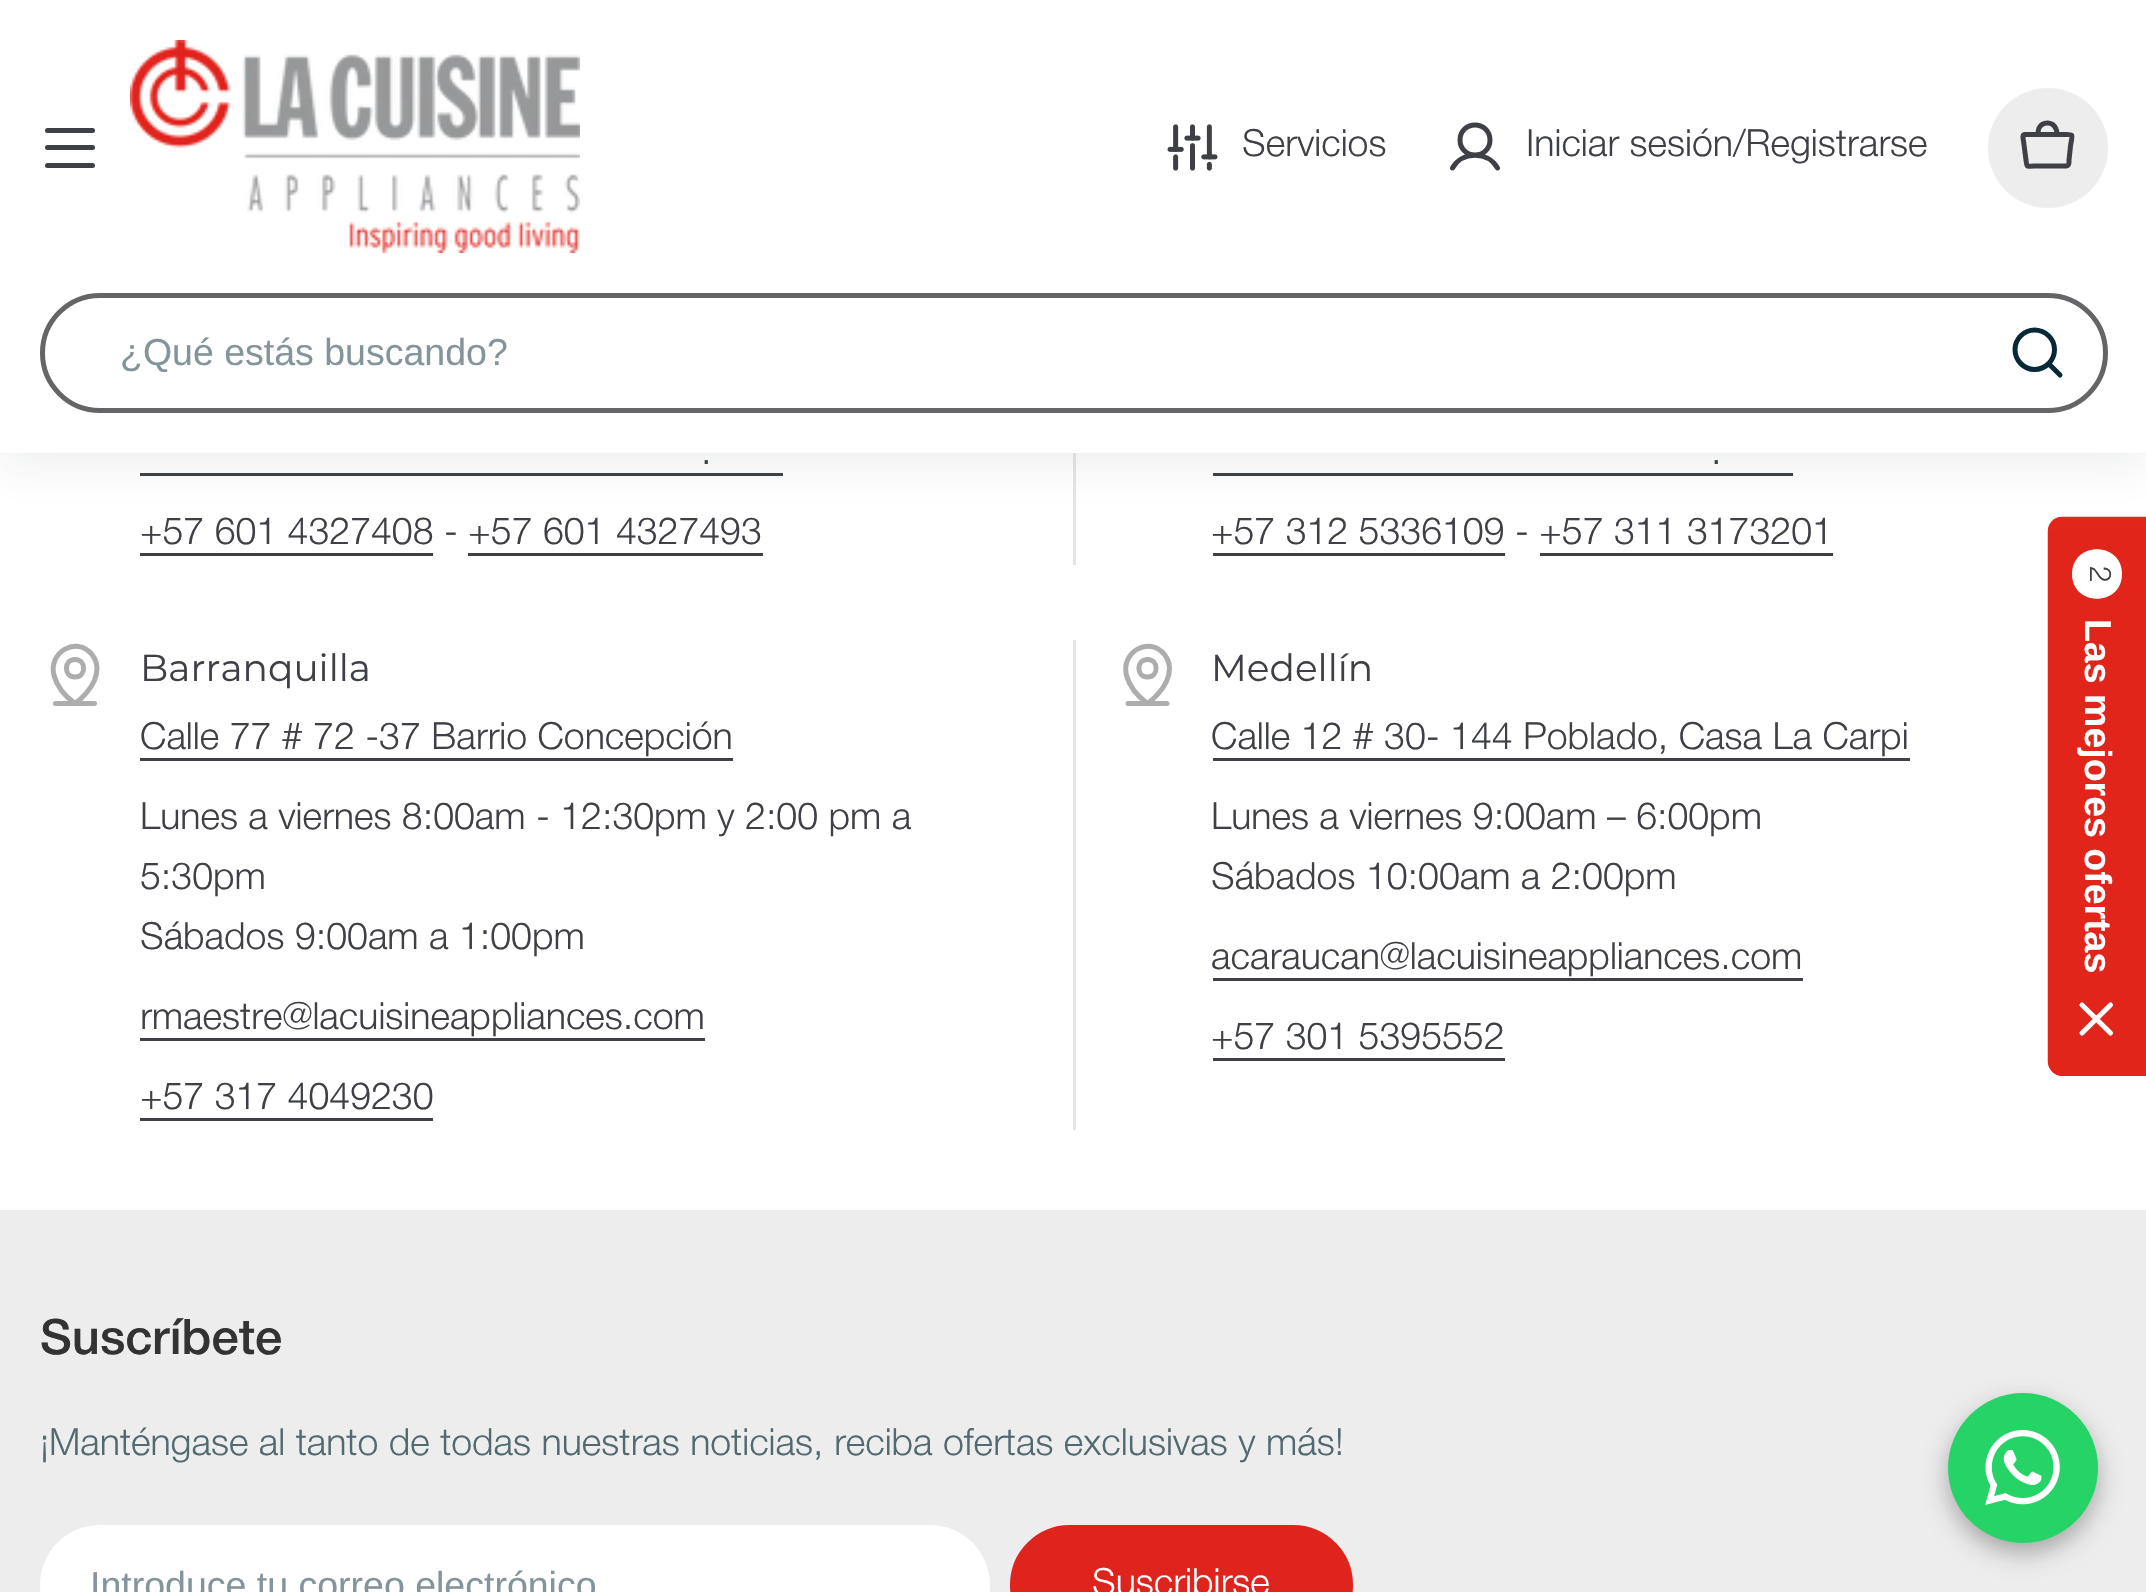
#include "include/core/SkBlurTypes.h"
#include "include/core/SkCanvas.h"
#include "include/core/SkData.h"
#include "include/core/SkFont.h"
#include "include/core/SkFontMgr.h"
#include "include/core/SkImage.h"
#include "include/core/SkMaskFilter.h"
#include "include/core/SkPaint.h"
#include "include/core/SkPathBuilder.h"
#include "include/core/SkTextBlob.h"
#include "include/effects/SkDashPathEffect.h"
#include "include/effects/SkGradientShader.h"
#include "include/utils/SkParsePath.h"

extern sk_sp<SkFontMgr> fontMgr;

static SkFont font(const char* family, int weight, float size, bool italic = false) {
    SkFontStyle style(weight, SkFontStyle::kNormal_Width,
        italic ? SkFontStyle::kItalic_Slant : SkFontStyle::kUpright_Slant);
    SkFont result(fontMgr->matchFamilyStyle(family, style), size);
    result.setSubpixel(true);
    return result;
}

static void drawLabel(SkCanvas* canvas, const char* s, float x, float y, const SkFont& font, SkColor color) {
    SkPaint ink(SkColor4f::FromColor(color));
    ink.setAntiAlias(true);
    canvas->drawString(s, x, y, font, ink);
}

static void fillRect(SkCanvas* canvas, float x, float y, float w, float h, SkColor color) {
    SkPaint ink(SkColor4f::FromColor(color));
    ink.setAntiAlias(true);
    canvas->drawRect(SkRect::MakeXYWH(x, y, w, h), ink);
}

static void fillRRect(SkCanvas* canvas, float x, float y, float w, float h, float radius, SkColor color) {
    SkPaint ink(SkColor4f::FromColor(color));
    ink.setAntiAlias(true);
    canvas->drawRoundRect(SkRect::MakeXYWH(x, y, w, h), radius, radius, ink);
}

static void drawPhoto(SkCanvas* canvas, const char* path, float x, float y, float w, float h) {
    auto image = SkImages::DeferredFromEncodedData(SkData::MakeFromFileName(path));
    canvas->drawImageRect(image, SkRect::MakeXYWH(x, y, w, h), SkSamplingOptions());
}

static SkPath parsePath(const char* data, bool evenOdd = false) {
    SkPath result = *SkParsePath::FromSVGString(data);
    if (evenOdd) result.setFillType(SkPathFillType::kEvenOdd);
    return result;
}

void draw(SkCanvas* canvas) {
    SkPaint paint;
    paint.setAntiAlias(true);
    canvas->clear(0xFFFFFFFF);
    fillRect(canvas, 140, 473, 643, 3, 0xFF3E4045);
    fillRect(canvas, 1073, 453, 3, 112, 0xFFE5E5E5);
    fillRect(canvas, 1213, 473, 580, 3, 0xFF3E4045);
    paint.setColor(0xFFE1251B);
    canvas->drawPath(parsePath("M2048 1061V532C2048 523 2054 517 2062 517H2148V1076H2062C2054 1076 2048 1069 2048 1061Z"), paint);
    paint.setStroke(true);
    paint.setStrokeWidth(2.5f);
    canvas->drawPath(parsePath("M2049 1061V531.5C2049 524 2055 518 2062.5 518H2146V1074.5H2062.5C2055 1074.5 2049 1068.5 2049 1061Z"), paint);
    paint.setStroke(false);
    paint.setColor(0x1A3E4045);
    paint.setMaskFilter(SkMaskFilter::MakeBlur(kNormal_SkBlurStyle, 22.5f));
    canvas->drawRect(SkRect::MakeXYWH(0, 10, 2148, 453), paint);
    paint.setMaskFilter(nullptr);
    fillRect(canvas, 0, 0, 2146, 453, 0xFFFFFFFF);
    fillRRect(canvas, 45, 145, 50, 5, 2.5f, 0xFF3E4045);
    fillRRect(canvas, 45, 128, 50, 5, 2.5f, 0xFF3E4045);
    fillRRect(canvas, 45, 163, 50, 5, 2.5f, 0xFF3E4045);
    drawPhoto(canvas, "assets/img1.png", 130, 40, 450, 213);
    drawPhoto(canvas, "assets/img2.png", 1167, 124, 51, 47);
    SkFont font1 = font("Helvetica Neue", 300, 37.5f);
    drawLabel(canvas, "Servicios", 1242, 156, font1, 0xFF3E4045);
    paint.setStroke(true);
    paint.setStrokeWidth(5);
    paint.setStrokeCap(SkPaint::kRound_Cap);
    paint.setStrokeJoin(SkPaint::kRound_Join);
    paint.setColor(0xFF3E4045);
    canvas->drawPath(parsePath("M1475 155C1483.5 155 1490 148.5 1490 140C1490 131.5 1483.5 125 1475 125C1466.5 125 1460 131.5 1460 140C1460 148.5 1466.5 155 1475 155ZM1452.5 168C1462 151 1488 151 1497.5 168"), paint);
    drawLabel(canvas, "Iniciar sesión/Registrarse", 1526, 156, font1, 0xFF3E4045);
    paint.setStroke(false);
    paint.setColor(0xFFEDEDED);
    canvas->drawCircle(2048, 148, 60, paint);
    paint.setStroke(true);
    paint.setColor(0xFF3E4045);
    canvas->drawPath(parsePath("M2066.5 166H2034.5C2026 166 2027 168 2026 160L2023.5 141C2023.5 140 2021.5 134.5 2025 134.5H2062.5C2074.5 134.5 2072.5 133 2070.5 146L2069 160C2069 161 2069.5 166 2066.5 166ZM2038 134.5C2038 132 2038 130 2039 128C2043 121 2053 121.5 2056 129C2057 130.5 2057 132.5 2057 134.5"), paint);
    paint.setStrokeCap(SkPaint::kButt_Cap);
    paint.setStrokeJoin(SkPaint::kMiter_Join);
    paint.setColor(0xFF656567);
    canvas->drawRoundRect(SkRect::MakeXYWH(42.5f, 295.5f, 2063, 115), 57.5f, 57.5f, paint);
    SkFont font2 = font("Liberation Sans", 400, 37.5f);
    drawLabel(canvas, "¿Qué estás buscando?", 120, 365, font2, 0xFF83949A);
    paint.setStrokeCap(SkPaint::kRound_Cap);
    paint.setStrokeJoin(SkPaint::kRound_Join);
    paint.setColor(0xFF072835);
    canvas->drawPath(parsePath("M2034.5 369.5C2045.5 369.5 2054.5 360.5 2054.5 349.5C2054.5 339 2045.5 330 2034.5 330C2024 330 2015 339 2015 349.5C2015 360.5 2024 369.5 2034.5 369.5ZM2048.5 363.5L2060 375"), paint);
    drawLabel(canvas, ".", 701, 464, font1, 0xFF3E4045);
    drawLabel(canvas, "+57 601 4327408 - +57 601 4327493", 140, 544, font1, 0xFF3E4045);
    fillRect(canvas, 140, 553, 293, 3, 0xFF3E4045);
    fillRect(canvas, 468, 553, 295, 3, 0xFF3E4045);
    drawLabel(canvas, ".", 1711, 464, font1, 0xFF3E4045);
    drawLabel(canvas, "+57 312 5336109 - +57 311 3173201", 1211, 544, font1, 0xFF3E4045);
    fillRect(canvas, 1213, 553, 292, 3, 0xFF3E4045);
    fillRect(canvas, 1540, 553, 293, 3, 0xFF3E4045);
    paint.setColor(0xFFADADAD);
    canvas->drawPath(parsePath("M55.5 703.5H94.5M75 677C86.5 677 86.5 659.5 75 659.5C63.5 659.5 63.5 677 75 677ZM97 668.5C97 688 75 703.5 75 703.5C66 697 57 686.5 54 675.5C48 652 76.5 635.5 92 654.5C95 658.5 97 663.5 97 668.5Z"), paint);
    SkFont font3 = font("Montserrat", 400, 37.5f);
    drawLabel(canvas, "Barranquilla", 140, 681, font3, 0xFF3E4045);
    drawLabel(canvas, "Calle 77 # 72 -37 Barrio Concepción", 140, 749, font1, 0xFF3E4045);
    fillRect(canvas, 140, 758, 593, 3, 0xFF3E4045);
    drawLabel(canvas, "Lunes a viernes 8:00am - 12:30pm y 2:00 pm a", 140, 829, font1, 0xFF3E4045);
    drawLabel(canvas, "5:30pm", 140, 889, font1, 0xFF3E4045);
    drawLabel(canvas, "Sábados 9:00am a 1:00pm", 140, 949, font1, 0xFF3E4045);
    drawLabel(canvas, "rmaestre@lacuisineappliances.com", 140, 1029, font1, 0xFF3E4045);
    fillRect(canvas, 140, 1038, 565, 3, 0xFF3E4045);
    drawLabel(canvas, "+57 317 4049230", 140, 1109, font1, 0xFF3E4045);
    fillRect(canvas, 140, 1118, 293, 3, 0xFF3E4045);
    fillRect(canvas, 1073, 640, 3, 490, 0xFFE5E5E5);
    canvas->drawPath(parsePath("M1128 703.5H1167M1147.5 677C1159 677 1159 659.5 1147.5 659.5C1136 659.5 1136 677 1147.5 677ZM1169.5 668.5C1169.5 688 1147.5 703.5 1147.5 703.5C1138.5 697 1129.5 686.5 1126.5 675.5C1120.5 652 1149 635.5 1164.5 654.5C1167.5 658.5 1169.5 663.5 1169.5 668.5Z"), paint);
    drawLabel(canvas, "Medellín", 1211, 681, font3, 0xFF3E4045);
    drawLabel(canvas, "Calle 12 # 30- 144 Poblado, Casa La Carpi", 1211, 749, font1, 0xFF3E4045);
    fillRect(canvas, 1213, 758, 697, 3, 0xFF3E4045);
    drawLabel(canvas, "Lunes a viernes 9:00am – 6:00pm", 1211, 829, font1, 0xFF3E4045);
    drawLabel(canvas, "Sábados 10:00am a 2:00pm", 1211, 889, font1, 0xFF3E4045);
    drawLabel(canvas, "acaraucan@lacuisineappliances.com", 1211, 969, font1, 0xFF3E4045);
    fillRect(canvas, 1213, 978, 590, 3, 0xFF3E4045);
    drawLabel(canvas, "+57 301 5395552", 1211, 1049, font1, 0xFF3E4045);
    fillRect(canvas, 1213, 1058, 292, 3, 0xFF3E4045);
    fillRect(canvas, 0, 1210, 2146, 382, 0xFFEDEDED);
    SkFont font4 = font("Helvetica Neue", 500, 49);
    drawLabel(canvas, "Suscríbete", 40, 1354, font4, 0xFF333333);
    drawLabel(canvas, "¡Manténgase al tanto de todas nuestras noticias, reciba ofertas exclusivas y más!", 40, 1455, font1, 0xFF516971);
    fillRRect(canvas, 40, 1525, 950, 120, 60, 0xFFFFFFFF);
    drawLabel(canvas, "Introduce tu correo electrónico", 90, 1598, font2, 0xFF83949A);
    paint.setStroke(false);
    paint.setColor(0xFFDE241D);
    canvas->drawRoundRect(SkRect::MakeXYWH(1011.5f, 1526.5f, 340, 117), 58.5f, 58.5f, paint);
    paint.setStroke(true);
    paint.setStrokeWidth(3);
    paint.setStrokeCap(SkPaint::kButt_Cap);
    paint.setStrokeJoin(SkPaint::kMiter_Join);
    canvas->drawRoundRect(SkRect::MakeXYWH(1011.5f, 1526.5f, 340, 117), 58.5f, 58.5f, paint);
    drawLabel(canvas, "Suscribirse", 1092, 1595, font1, 0xFFFFFFFF);
    paint.setStroke(false);
    paint.setColor(0xFFFFFFFF);
    canvas->drawPath(parsePath("M2122 574C2122 607 2072 607 2072 574C2072 541 2122 541 2122 574Z"), paint);
    SkFont font5 = font("Helvetica Neue", 300, 30);
    canvas->save();
    canvas->rotate(90, 2090, 566);
    drawLabel(canvas, "2", 2090, 566, font5, 0xFF3E4045);
    canvas->restore();
    SkFont font6 = font("Liberation Sans", 700, 37.5f);
    canvas->save();
    canvas->rotate(90, 2085, 619);
    drawLabel(canvas, "Las mejores ofertas", 2085, 619, font6, 0xFFFFFFFF);
    canvas->restore();
    paint.setStroke(true);
    paint.setStrokeWidth(5);
    paint.setStrokeCap(SkPaint::kRound_Cap);
    paint.setStrokeJoin(SkPaint::kRound_Join);
    canvas->drawPath(parsePath("M2110.5 1033L2082 1005M2082 1033L2110.5 1005"), paint);
    paint.setStroke(false);
    paint.setColor(0x4D000000);
    paint.setMaskFilter(SkMaskFilter::MakeBlur(kNormal_SkBlurStyle, 12.5f));
    canvas->drawRoundRect(SkRect::MakeXYWH(1948, 1403, 150, 150), 75, 75, paint);
    paint.setMaskFilter(nullptr);
    paint.setColor(0xFF25D366);
    canvas->drawCircle(2023, 1468, 75, paint);
    drawPhoto(canvas, "assets/img3.png", 1985, 1430, 75, 75);
}
